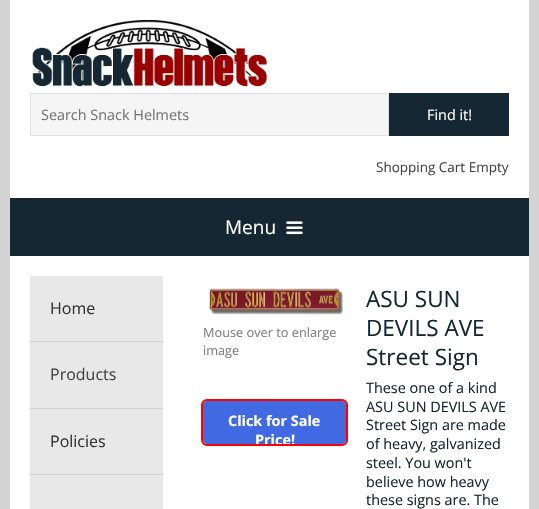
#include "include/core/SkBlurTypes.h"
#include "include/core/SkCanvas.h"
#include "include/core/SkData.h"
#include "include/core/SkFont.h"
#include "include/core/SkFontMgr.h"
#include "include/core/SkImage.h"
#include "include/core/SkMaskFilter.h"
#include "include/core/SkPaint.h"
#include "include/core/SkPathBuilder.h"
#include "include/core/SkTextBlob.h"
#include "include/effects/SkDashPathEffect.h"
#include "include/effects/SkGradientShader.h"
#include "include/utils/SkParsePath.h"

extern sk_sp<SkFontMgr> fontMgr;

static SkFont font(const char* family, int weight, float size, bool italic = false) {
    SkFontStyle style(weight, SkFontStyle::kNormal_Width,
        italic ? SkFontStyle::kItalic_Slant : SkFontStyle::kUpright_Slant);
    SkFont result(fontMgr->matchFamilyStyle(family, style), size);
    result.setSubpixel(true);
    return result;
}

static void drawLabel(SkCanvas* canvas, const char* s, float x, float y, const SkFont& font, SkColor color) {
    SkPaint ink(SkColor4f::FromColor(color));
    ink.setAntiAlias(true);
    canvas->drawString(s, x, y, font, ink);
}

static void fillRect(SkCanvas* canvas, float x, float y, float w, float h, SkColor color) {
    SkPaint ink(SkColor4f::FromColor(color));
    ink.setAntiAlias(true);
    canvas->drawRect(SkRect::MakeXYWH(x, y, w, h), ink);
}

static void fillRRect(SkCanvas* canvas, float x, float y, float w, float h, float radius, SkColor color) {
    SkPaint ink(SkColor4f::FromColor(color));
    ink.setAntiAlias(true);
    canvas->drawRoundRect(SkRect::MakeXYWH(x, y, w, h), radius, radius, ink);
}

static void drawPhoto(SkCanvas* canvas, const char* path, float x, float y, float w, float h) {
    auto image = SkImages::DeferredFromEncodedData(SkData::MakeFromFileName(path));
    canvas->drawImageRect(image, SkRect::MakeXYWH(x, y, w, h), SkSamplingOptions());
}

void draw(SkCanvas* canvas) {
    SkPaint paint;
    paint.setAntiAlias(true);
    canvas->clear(0xFFD3D3D3);
    fillRect(canvas, 10, 0, 519, 198, 0xFFFFFFFF);
    drawPhoto(canvas, "assets/img1.png", 32, 20, 235, 67);
    paint.setColor(0xFFF5F5F5);
    canvas->drawRect(SkRect::MakeXYWH(30.5f, 93.5f, 358, 42), paint);
    paint.setStroke(true);
    paint.setStrokeWidth(1);
    paint.setColor(0xFFE0E0E0);
    canvas->drawRect(SkRect::MakeXYWH(30.5f, 93.5f, 358, 42), paint);
    SkFont font1 = font("Open Sans", 400, 14.4f);
    drawLabel(canvas, "Search Snack Helmets", 41, 120, font1, 0xFF757575);
    fillRect(canvas, 389, 93, 120, 43, 0xFF152732);
    drawLabel(canvas, "Find it!", 427, 120, font1, 0xFFFFFFFF);
    SkFont font2 = font("Open Sans", 400, 13.5f);
    drawLabel(canvas, "Shopping Cart Empty", 376, 172, font2, 0xFF444444);
    fillRect(canvas, 10, 198, 519, 58, 0xFF152732);
    SkFont font3 = font("Open Sans", 400, 19);
    drawLabel(canvas, "Menu", 225, 234, font3, 0xFFFFFFFF);
    drawPhoto(canvas, "assets/img2.png", 286, 221, 17, 14);
    fillRect(canvas, 10, 256, 519, 253, 0xFFFFFFFF);
    fillRect(canvas, 30, 276, 133, 233, 0xFFE8E8E8);
    fillRect(canvas, 30, 341, 133, 1, 0xFFD2D2D2);
    SkFont font4 = font("Open Sans", 400, 16);
    drawLabel(canvas, "Home", 50, 314, font4, 0xFF333333);
    fillRect(canvas, 30, 408, 133, 1, 0xFFD2D2D2);
    drawLabel(canvas, "Products", 50, 380, font4, 0xFF444444);
    fillRect(canvas, 30, 474, 133, 1, 0xFFD2D2D2);
    drawLabel(canvas, "Policies", 50, 447, font4, 0xFF333333);
    drawPhoto(canvas, "assets/img3.png", 209, 288, 135, 27);
    SkFont font5 = font("Open Sans", 400, 12.75f);
    drawLabel(canvas, "Mouse over to enlarge", 203, 337, font5, 0xFF808080);
    drawLabel(canvas, "image", 203, 355, font5, 0xFF808080);
    fillRRect(canvas, 203, 401, 143, 43, 4, 0xFF4169E1);
    SkFont font6 = font("Open Sans", 700, 14.4f);
    drawLabel(canvas, "Price!", 255, 445, font6, 0xFFFFFFFF);
    paint.setStrokeWidth(2);
    paint.setColor(0xFFFF0000);
    canvas->drawRoundRect(SkRect::MakeXYWH(202, 400, 145, 45), 5, 5, paint);
    drawLabel(canvas, "Click for Sale", 228, 426, font6, 0xFFFFFFFF);
    SkFont font7 = font("Open Sans", 400, 22.5f);
    drawLabel(canvas, "ASU SUN", 366, 307, font7, 0xFF152732);
    drawLabel(canvas, "DEVILS AVE", 366, 336, font7, 0xFF152732);
    drawLabel(canvas, "Street Sign", 366, 365, font7, 0xFF152732);
    drawLabel(canvas, "These one of a kind", 366, 393, font1, 0xFF152732);
    drawLabel(canvas, "ASU SUN DEVILS AVE", 366, 412, font1, 0xFF152732);
    drawLabel(canvas, "Street Sign are made", 366, 430, font1, 0xFF152732);
    drawLabel(canvas, "of heavy, galvanized", 366, 449, font1, 0xFF152732);
    drawLabel(canvas, "steel. You won't", 366, 468, font1, 0xFF152732);
    drawLabel(canvas, "believe how heavy", 366, 487, font1, 0xFF152732);
    drawLabel(canvas, "these signs are. The", 366, 505, font1, 0xFF152732);
}
